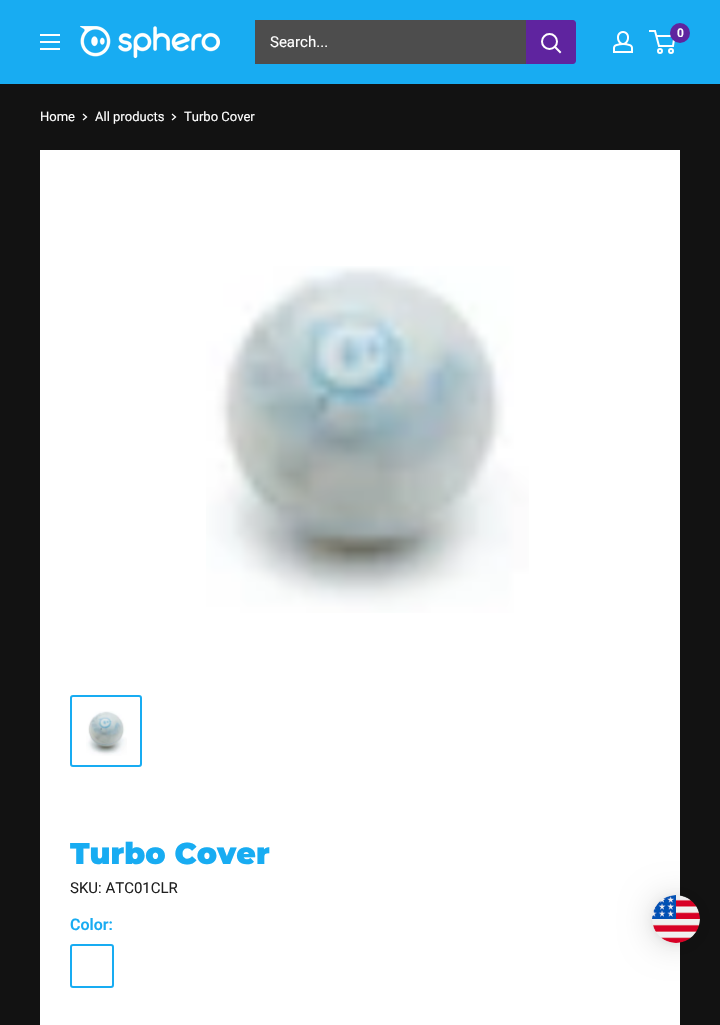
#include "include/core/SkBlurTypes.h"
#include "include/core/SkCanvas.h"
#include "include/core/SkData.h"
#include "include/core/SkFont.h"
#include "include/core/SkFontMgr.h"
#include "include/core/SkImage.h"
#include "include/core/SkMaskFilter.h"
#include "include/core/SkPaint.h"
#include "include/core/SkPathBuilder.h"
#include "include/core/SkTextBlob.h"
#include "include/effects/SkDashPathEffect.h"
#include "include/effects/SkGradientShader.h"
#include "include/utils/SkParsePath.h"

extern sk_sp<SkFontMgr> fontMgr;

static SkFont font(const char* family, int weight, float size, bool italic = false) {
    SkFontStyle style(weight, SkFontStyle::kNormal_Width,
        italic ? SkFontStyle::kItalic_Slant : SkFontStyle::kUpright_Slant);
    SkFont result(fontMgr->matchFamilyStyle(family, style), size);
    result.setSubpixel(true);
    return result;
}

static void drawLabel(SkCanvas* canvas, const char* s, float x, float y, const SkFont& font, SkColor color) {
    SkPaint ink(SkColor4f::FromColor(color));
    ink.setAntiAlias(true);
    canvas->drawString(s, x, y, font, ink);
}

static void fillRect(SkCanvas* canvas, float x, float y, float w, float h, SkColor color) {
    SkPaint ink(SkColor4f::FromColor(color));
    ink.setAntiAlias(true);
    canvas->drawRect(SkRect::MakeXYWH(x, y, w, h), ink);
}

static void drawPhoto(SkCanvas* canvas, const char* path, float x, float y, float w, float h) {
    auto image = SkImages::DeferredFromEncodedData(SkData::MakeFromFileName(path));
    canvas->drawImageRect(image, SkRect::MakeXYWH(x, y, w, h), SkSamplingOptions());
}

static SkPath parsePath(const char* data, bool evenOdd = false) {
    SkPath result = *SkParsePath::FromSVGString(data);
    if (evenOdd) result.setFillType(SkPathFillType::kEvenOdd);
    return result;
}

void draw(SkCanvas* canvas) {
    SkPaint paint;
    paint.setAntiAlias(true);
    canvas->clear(0xFF121212);
    fillRect(canvas, 0, 0, 720, 84, 0xFF18ACF2);
    drawPhoto(canvas, "assets/img1.png", 80, 26, 140, 32);
    drawPhoto(canvas, "assets/img2.png", 613, 31, 20, 22);
    paint.setStroke(true);
    paint.setStrokeWidth(2);
    paint.setColor(0xFFFFFFFF);
    canvas->drawCircle(660, 51, 2, paint);
    canvas->drawCircle(671, 51, 2, paint);
    canvas->drawPath(parsePath("M656.5 36H674.5L673 46H659L655 31H649"), paint);
    paint.setStroke(false);
    paint.setColor(0xFF5F249F);
    canvas->drawCircle(680, 33, 10, paint);
    SkFont font1 = font("Roboto", 600, 12);
    drawLabel(canvas, "0", 677, 37, font1, 0xFFFFFFFF);
    drawPhoto(canvas, "assets/img3.png", 40, 34, 20, 16);
    fillRect(canvas, 255, 20, 271, 44, 0xFF4D4D4D);
    SkFont font2 = font("Roboto", 400, 15);
    drawLabel(canvas, "Search...", 270, 47, font2, 0xFFFFFFFF);
    canvas->drawPath(parsePath("M526 20H573C574.5 20 576 21.5 576 23V61C576 62.5 574.5 64 573 64H526Z"), paint);
    paint.setStroke(true);
    paint.setStrokeCap(SkPaint::kSquare_Cap);
    paint.setColor(0xFFFFFFFF);
    canvas->drawPath(parsePath("M560 52L555 47"), paint);
    paint.setStrokeCap(SkPaint::kButt_Cap);
    canvas->drawCircle(549.5f, 41.5f, 7.5f, paint);
    SkFont font3 = font("Roboto", 400, 13);
    drawLabel(canvas, "Home", 40, 121, font3, 0xFFFFFFFF);
    paint.setStrokeWidth(1.3f);
    paint.setStrokeCap(SkPaint::kSquare_Cap);
    canvas->drawPath(parsePath("M83.5 114.5L86.5 117L83.5 119.5"), paint);
    drawLabel(canvas, "All products", 95, 121, font3, 0xFFFFFFFF);
    canvas->drawPath(parsePath("M172.5 114.5L175.5 117L172.5 119.5"), paint);
    drawLabel(canvas, "Turbo Cover", 184, 121, font3, 0xFFFFFFFF);
    fillRect(canvas, 40, 150, 640, 875, 0xFFFFFFFF);
    drawPhoto(canvas, "assets/img4.png", 206, 266, 323, 347);
    paint.setStrokeWidth(2);
    paint.setStrokeCap(SkPaint::kButt_Cap);
    paint.setColor(0xFF18ACF2);
    canvas->drawRoundRect(SkRect::MakeXYWH(71, 696, 70, 70), 2, 2, paint);
    drawPhoto(canvas, "assets/img5.png", 86, 711, 41, 45);
    SkFont font4 = font("Montserrat", 900, 30);
    drawLabel(canvas, "Turbo Cover", 70, 864, font4, 0xFF18ACF2);
    drawLabel(canvas, "SKU: ATC01CLR", 70, 893, font2, 0xFF212121);
    SkFont font5 = font("Roboto", 600, 16);
    drawLabel(canvas, "Color:", 70, 930, font5, 0xFF18ACF2);
    canvas->drawRoundRect(SkRect::MakeXYWH(71, 945, 42, 42), 2, 2, paint);
    paint.setStroke(false);
    paint.setColor(0x29000000);
    paint.setMaskFilter(SkMaskFilter::MakeBlur(kNormal_SkBlurStyle, 16));
    canvas->drawRoundRect(SkRect::MakeXYWH(652, 897, 48, 48), 24, 24, paint);
    paint.setMaskFilter(nullptr);
    paint.setColor(0x0F000000);
    paint.setMaskFilter(SkMaskFilter::MakeBlur(kNormal_SkBlurStyle, 3));
    canvas->drawRoundRect(SkRect::MakeXYWH(652, 896, 48, 48), 24, 24, paint);
    paint.setMaskFilter(nullptr);
    drawPhoto(canvas, "assets/img6.png", 652, 895, 48, 48);
}
